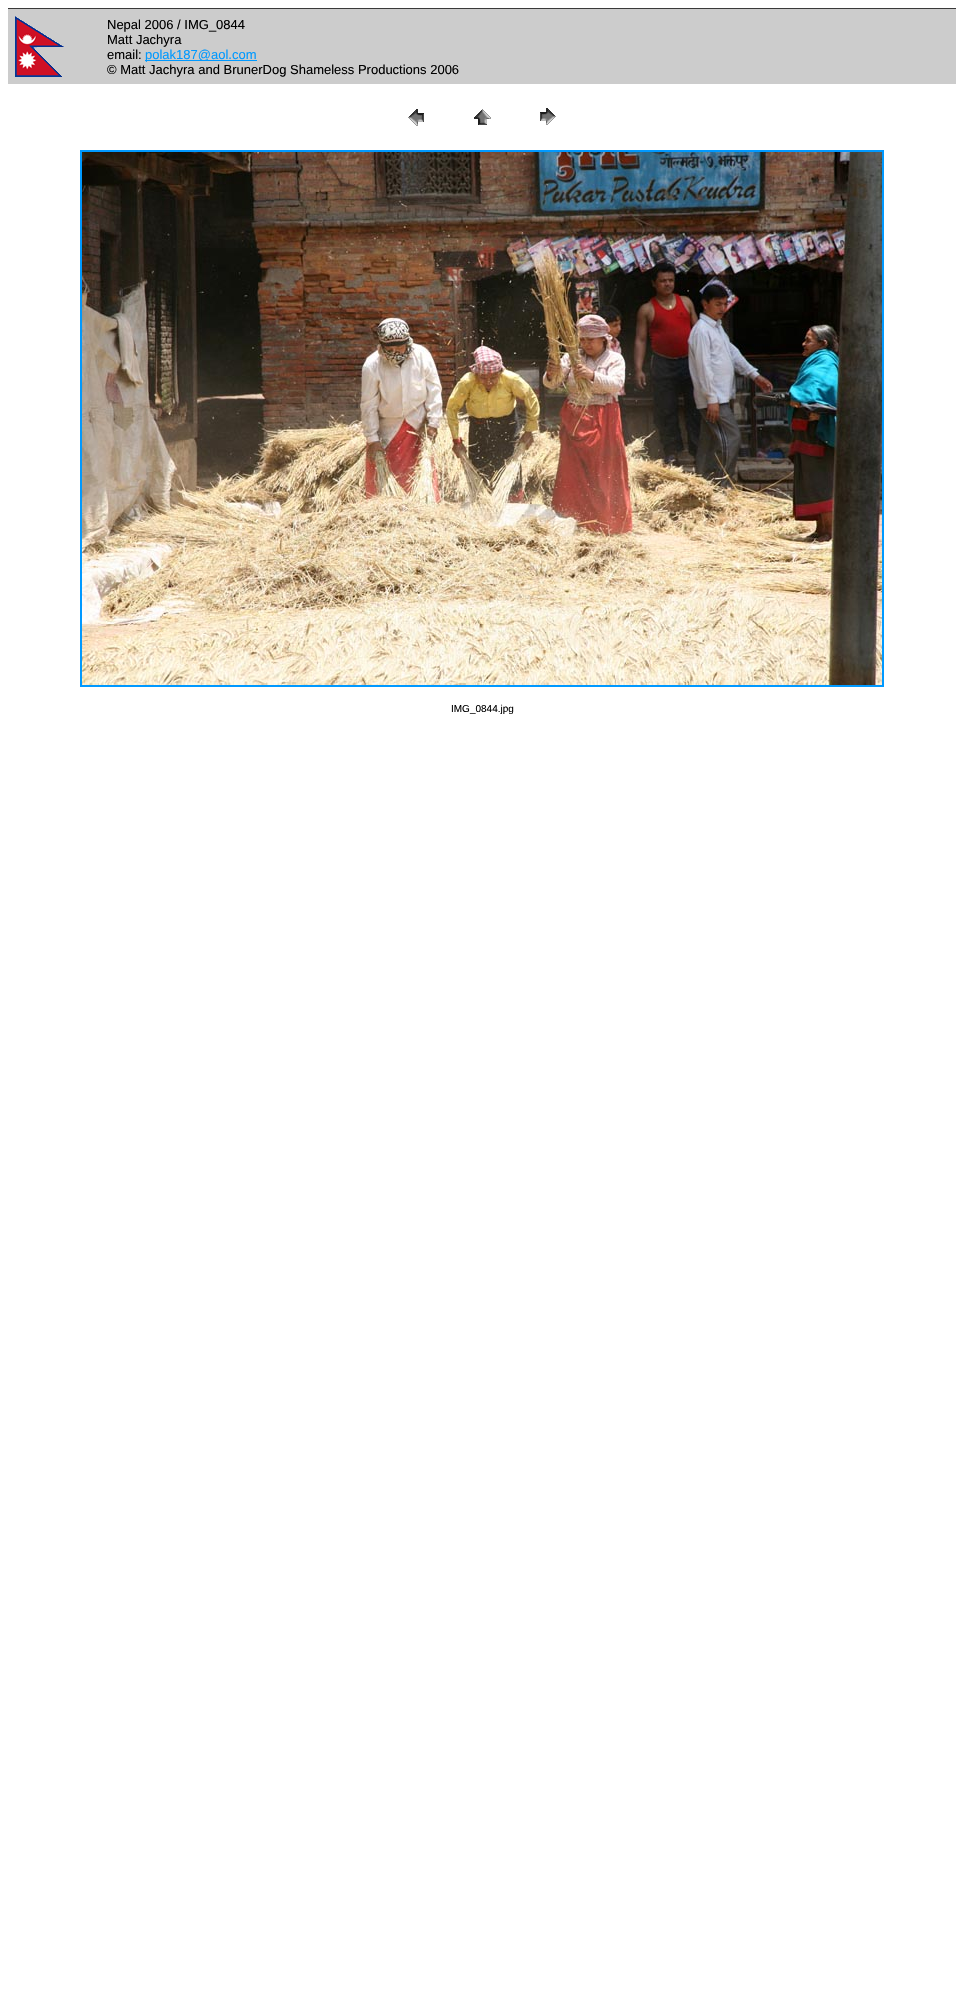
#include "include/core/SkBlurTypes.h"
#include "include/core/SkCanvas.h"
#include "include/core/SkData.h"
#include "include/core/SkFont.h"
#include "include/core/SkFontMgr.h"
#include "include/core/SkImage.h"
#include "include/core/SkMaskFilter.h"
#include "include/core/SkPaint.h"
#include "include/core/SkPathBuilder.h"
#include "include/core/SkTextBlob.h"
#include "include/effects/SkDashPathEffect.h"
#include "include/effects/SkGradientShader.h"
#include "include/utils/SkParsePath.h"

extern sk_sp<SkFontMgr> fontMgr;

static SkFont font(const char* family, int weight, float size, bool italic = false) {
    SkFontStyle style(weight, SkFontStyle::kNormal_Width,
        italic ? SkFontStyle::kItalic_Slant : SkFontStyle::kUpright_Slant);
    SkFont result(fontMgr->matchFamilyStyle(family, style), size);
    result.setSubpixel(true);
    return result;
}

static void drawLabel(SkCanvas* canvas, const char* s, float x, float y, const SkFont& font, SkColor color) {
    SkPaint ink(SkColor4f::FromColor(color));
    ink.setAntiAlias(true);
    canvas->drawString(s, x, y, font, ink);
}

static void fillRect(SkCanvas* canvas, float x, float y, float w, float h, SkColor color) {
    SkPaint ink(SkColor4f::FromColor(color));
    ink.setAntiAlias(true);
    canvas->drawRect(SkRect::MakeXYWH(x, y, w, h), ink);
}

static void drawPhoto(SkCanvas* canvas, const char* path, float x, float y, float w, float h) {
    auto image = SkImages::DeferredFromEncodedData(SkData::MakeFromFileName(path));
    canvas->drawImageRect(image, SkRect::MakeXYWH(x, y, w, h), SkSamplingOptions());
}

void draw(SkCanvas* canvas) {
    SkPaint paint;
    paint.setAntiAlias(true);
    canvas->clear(0xFFFFFFFF);
    fillRect(canvas, 8, 8, 948, 1, 0xFF393939);
    fillRect(canvas, 8, 9, 948, 75, 0xFFCCCCCC);
    drawPhoto(canvas, "assets/img1.png", 15, 16, 49, 61);
    SkFont font1 = font("Liberation Sans", 400, 13);
    drawLabel(canvas, "Nepal 2006 / IMG_0844", 107, 29, font1, 0xFF000000);
    drawLabel(canvas, "Matt Jachyra", 107, 44, font1, 0xFF000000);
    drawLabel(canvas, "email:", 107, 59, font1, 0xFF000000);
    fillRect(canvas, 145, 60, 112, 1, 0xFF0099FF);
    drawLabel(canvas, "polak187@aol.com", 145, 59, font1, 0xFF0099FF);
    drawLabel(canvas, "© Matt Jachyra and BrunerDog Shameless Productions 2006", 107, 74, font1, 0xFF000000);
    drawPhoto(canvas, "assets/img2.png", 408, 109, 16, 17);
    drawPhoto(canvas, "assets/img3.png", 474, 109, 17, 16);
    drawPhoto(canvas, "assets/img4.png", 540, 108, 16, 17);
    paint.setStroke(true);
    paint.setStrokeWidth(2);
    paint.setColor(0xFF0099FF);
    canvas->drawRect(SkRect::MakeXYWH(81, 151, 802, 535), paint);
    drawPhoto(canvas, "assets/img5.png", 82, 152, 800, 533);
    SkFont font2 = font("Liberation Sans", 400, 10);
    drawLabel(canvas, "IMG_0844.jpg", 451, 712, font2, 0xFF000000);
}
